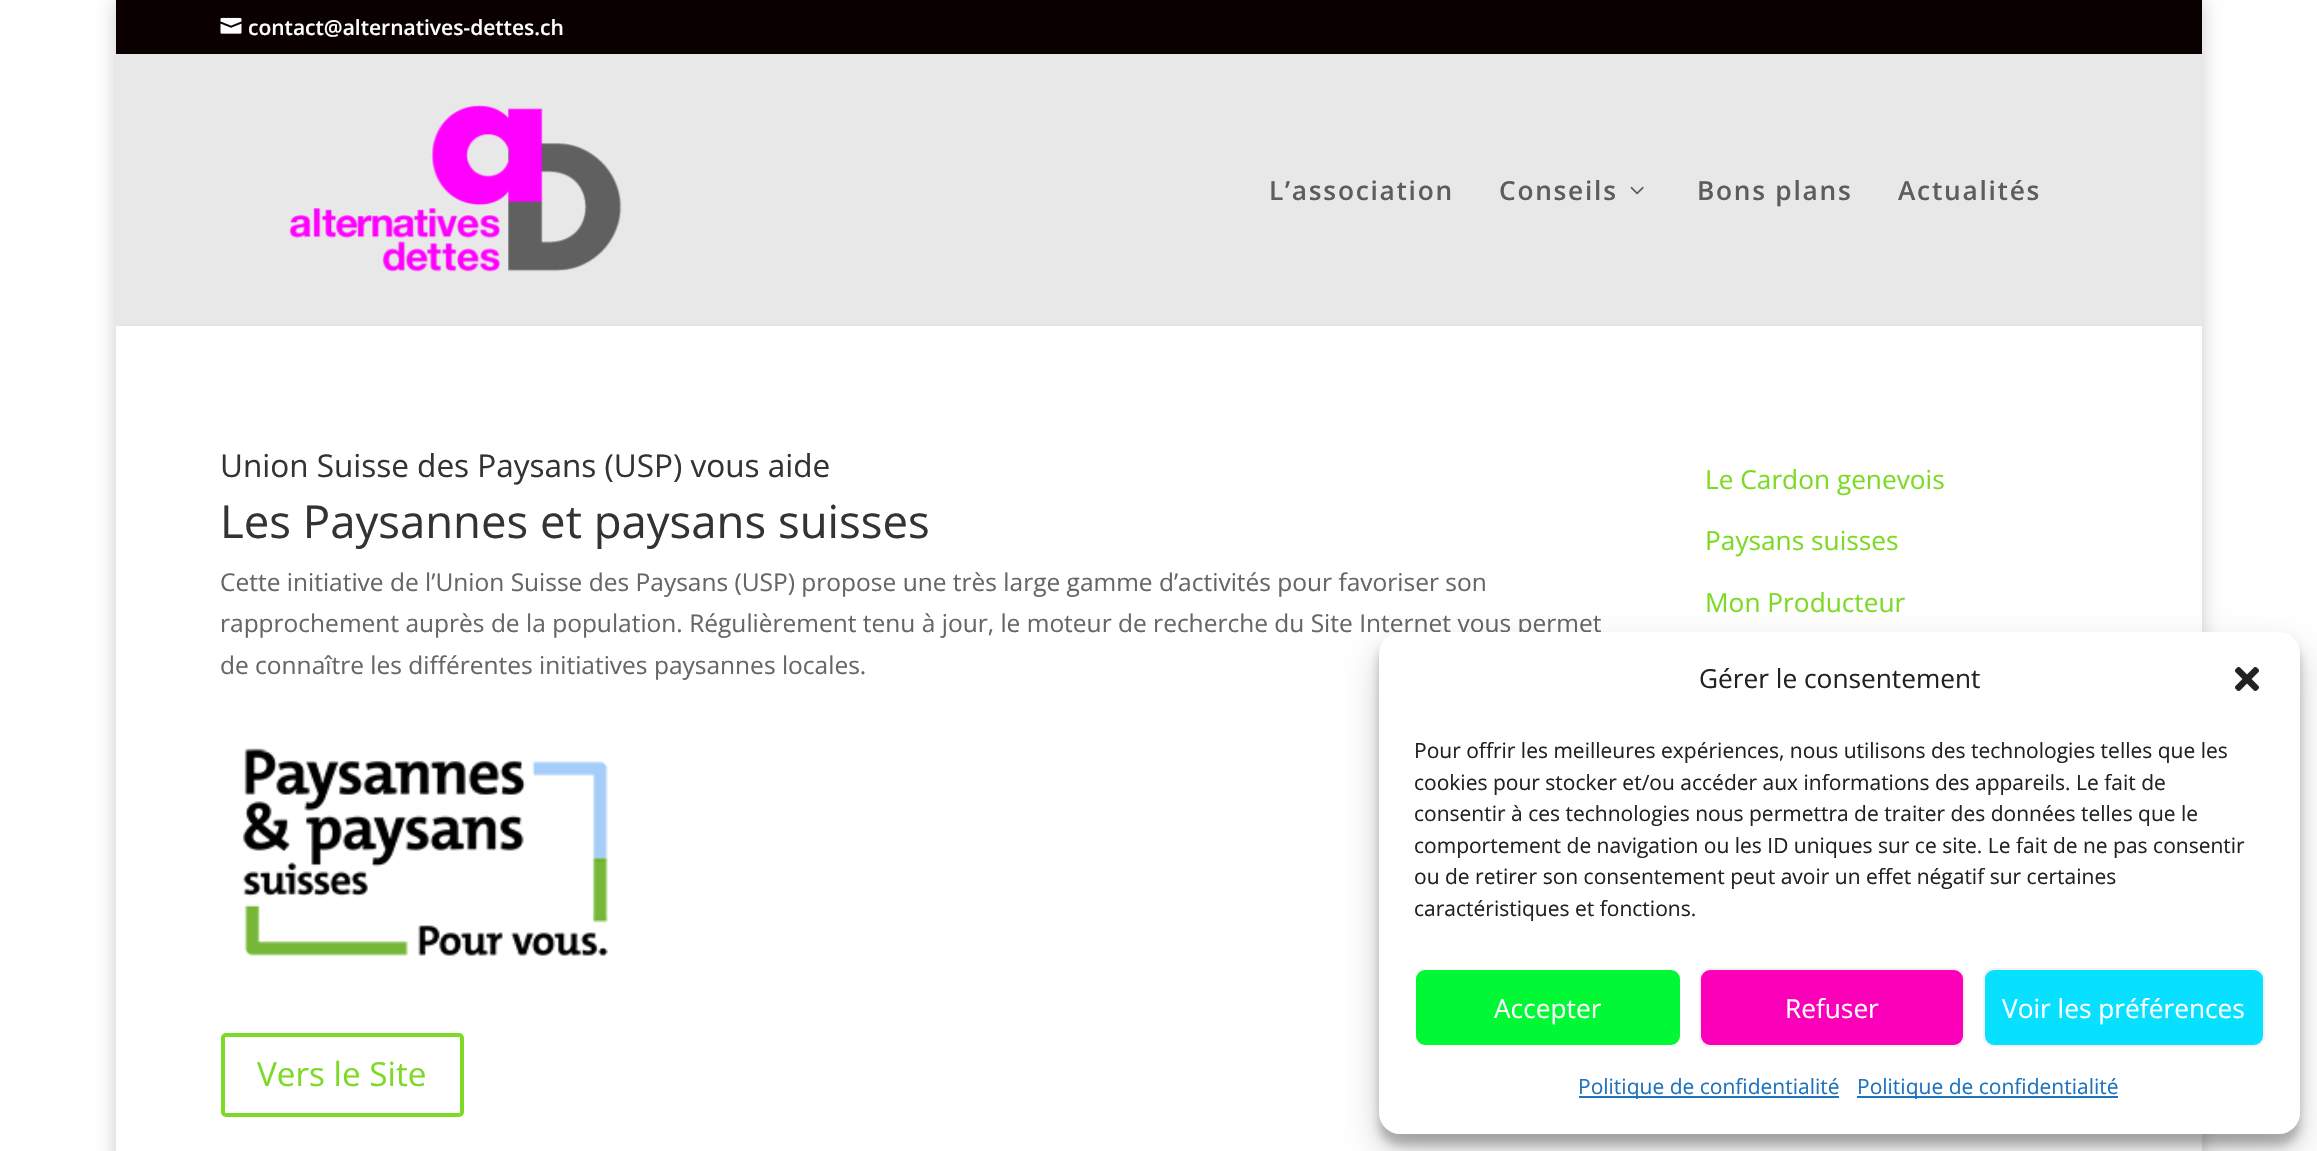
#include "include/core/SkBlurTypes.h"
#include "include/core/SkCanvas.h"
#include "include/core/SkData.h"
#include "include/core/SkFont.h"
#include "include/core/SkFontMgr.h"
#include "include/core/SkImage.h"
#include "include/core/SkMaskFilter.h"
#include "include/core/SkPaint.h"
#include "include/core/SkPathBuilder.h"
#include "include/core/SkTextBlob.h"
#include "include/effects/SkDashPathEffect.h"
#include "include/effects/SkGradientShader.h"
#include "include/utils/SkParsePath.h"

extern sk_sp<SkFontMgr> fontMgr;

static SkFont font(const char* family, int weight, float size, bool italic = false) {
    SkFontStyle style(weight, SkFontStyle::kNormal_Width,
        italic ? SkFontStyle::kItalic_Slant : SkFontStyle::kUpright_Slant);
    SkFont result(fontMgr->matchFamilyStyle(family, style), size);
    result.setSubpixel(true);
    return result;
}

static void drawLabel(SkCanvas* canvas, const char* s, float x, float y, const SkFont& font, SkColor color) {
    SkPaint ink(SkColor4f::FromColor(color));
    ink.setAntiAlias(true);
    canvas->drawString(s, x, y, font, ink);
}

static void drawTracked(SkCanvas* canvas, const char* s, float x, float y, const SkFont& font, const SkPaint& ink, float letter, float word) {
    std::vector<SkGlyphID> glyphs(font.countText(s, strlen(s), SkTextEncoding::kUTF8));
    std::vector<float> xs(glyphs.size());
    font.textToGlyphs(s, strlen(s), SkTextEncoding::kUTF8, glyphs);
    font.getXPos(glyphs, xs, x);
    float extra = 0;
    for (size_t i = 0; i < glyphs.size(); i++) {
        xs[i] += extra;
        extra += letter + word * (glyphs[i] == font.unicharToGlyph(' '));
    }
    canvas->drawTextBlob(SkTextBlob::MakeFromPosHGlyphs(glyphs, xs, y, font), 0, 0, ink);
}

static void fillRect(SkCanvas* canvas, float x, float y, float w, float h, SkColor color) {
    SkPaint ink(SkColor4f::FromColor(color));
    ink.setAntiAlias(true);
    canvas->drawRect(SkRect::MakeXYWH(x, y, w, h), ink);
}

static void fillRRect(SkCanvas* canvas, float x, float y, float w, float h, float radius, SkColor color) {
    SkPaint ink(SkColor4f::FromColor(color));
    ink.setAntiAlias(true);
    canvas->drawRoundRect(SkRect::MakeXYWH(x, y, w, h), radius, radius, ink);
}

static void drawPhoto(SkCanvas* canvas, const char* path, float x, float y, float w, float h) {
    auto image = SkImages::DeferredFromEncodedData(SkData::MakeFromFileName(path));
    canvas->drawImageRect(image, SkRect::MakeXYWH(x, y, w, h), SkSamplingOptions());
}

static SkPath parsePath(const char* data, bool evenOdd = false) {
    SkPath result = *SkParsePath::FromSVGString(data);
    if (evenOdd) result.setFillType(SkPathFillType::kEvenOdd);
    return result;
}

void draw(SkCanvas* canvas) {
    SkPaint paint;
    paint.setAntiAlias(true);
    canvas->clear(0xFFFFFFFF);
    paint.setColor(0x33000000);
    paint.setMaskFilter(SkMaskFilter::MakeBlur(kNormal_SkBlurStyle, 9));
    canvas->drawRect(SkRect::MakeXYWH(116, 0, 2086, 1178), paint);
    paint.setMaskFilter(nullptr);
    fillRect(canvas, 116, 0, 2086, 54, 0xFF0A0000);
    drawPhoto(canvas, "assets/img1.png", 220, 17, 22, 17);
    SkFont font1 = font("Open Sans", 600, 21);
    drawLabel(canvas, "contact@alternatives-dettes.ch", 248, 35, font1, 0xFFFFFFFF);
    paint.setColor(0xFFE6E6E6);
    canvas->drawPath(parsePath("M116 324V326H2202V56V324Z"), paint);
    fillRect(canvas, 116, 54, 2086, 270, 0xFFE8E8E8);
    drawPhoto(canvas, "assets/img2.png", 289, 105, 333, 167);
    SkFont font2 = font("Open Sans", 600, 26.25f);
    paint.setColor(0xFF5D5D5D);
    drawTracked(canvas, "L’association", 1269, 200, font2, paint, 1.75f, 0);
    drawTracked(canvas, "Conseils", 1499, 200, font2, paint, 1.75f, 0);
    drawPhoto(canvas, "assets/img3.png", 1630, 186, 14, 9);
    drawTracked(canvas, "Bons plans", 1697, 200, font2, paint, 1.75f, 0);
    drawTracked(canvas, "Actualités", 1898, 200, font2, paint, 1.75f, 0);
    fillRect(canvas, 116, 326, 2086, 825, 0xFFFFFFFF);
    SkFont font3 = font("Open Sans", 400, 31.5f);
    drawLabel(canvas, "Union Suisse des Paysans (USP) vous aide", 220, 477, font3, 0xFF333333);
    SkFont font4 = font("Open Sans", 400, 45.5f);
    drawLabel(canvas, "Les Paysannes et paysans suisses", 220, 538, font4, 0xFF333333);
    SkFont font5 = font("Open Sans", 400, 24.5f);
    drawLabel(canvas, "Cette initiative de l’Union Suisse des Paysans (USP) propose une très large gamme d’activités pour favoriser son", 220, 591, font5, 0xFF666666);
    drawLabel(canvas, "rapprochement auprès de la population. Régulièrement tenu à jour, le moteur de recherche du Site Internet vous permet", 220, 632, font5, 0xFF666666);
    drawLabel(canvas, "de connaître les différentes initiatives paysannes locales.", 220, 674, font5, 0xFF666666);
    drawPhoto(canvas, "assets/img4.png", 242, 748, 366, 208);
    paint.setStroke(true);
    paint.setStrokeWidth(4);
    paint.setColor(0xFF7CDA24);
    canvas->drawRoundRect(SkRect::MakeXYWH(223, 1035, 239, 80), 3, 3, paint);
    SkFont font6 = font("Open Sans", 400, 33.25f);
    drawLabel(canvas, "Vers le Site", 257, 1086, font6, 0xFF7CDA24);
    SkFont font7 = font("Open Sans", 400, 26.25f);
    drawLabel(canvas, "Le Cardon genevois", 1705, 489, font7, 0xFF7CDA24);
    drawLabel(canvas, "Paysans suisses", 1705, 550, font7, 0xFF7CDA24);
    drawLabel(canvas, "Mon Producteur", 1705, 612, font7, 0xFF7CDA24);
    paint.setStroke(false);
    paint.setColor(0x3B000000);
    paint.setMaskFilter(SkMaskFilter::MakeBlur(kNormal_SkBlurStyle, 5));
    canvas->drawRoundRect(SkRect::MakeXYWH(1379, 642, 921, 503), 21, 21, paint);
    paint.setMaskFilter(nullptr);
    paint.setColor(0x30000000);
    paint.setMaskFilter(SkMaskFilter::MakeBlur(kNormal_SkBlurStyle, 17.5f));
    canvas->drawRoundRect(SkRect::MakeXYWH(1379, 649, 921, 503), 21, 21, paint);
    paint.setMaskFilter(nullptr);
    fillRRect(canvas, 1379, 632, 921, 502, 21, 0xFFFFFFFF);
    drawLabel(canvas, "Gérer le consentement", 1699, 688, font7, 0xFF222222);
    drawPhoto(canvas, "assets/img5.png", 2235, 667, 24, 24);
    SkFont font8 = font("Open Sans", 400, 21);
    drawLabel(canvas, "Pour offrir les meilleures expériences, nous utilisons des technologies telles que les", 1414, 758, font8, 0xFF222222);
    drawLabel(canvas, "cookies pour stocker et/ou accéder aux informations des appareils. Le fait de", 1414, 790, font8, 0xFF222222);
    drawLabel(canvas, "consentir à ces technologies nous permettra de traiter des données telles que le", 1414, 821, font8, 0xFF222222);
    drawLabel(canvas, "comportement de navigation ou les ID uniques sur ce site. Le fait de ne pas consentir", 1414, 853, font8, 0xFF222222);
    drawLabel(canvas, "ou de retirer son consentement peut avoir un effet négatif sur certaines", 1414, 884, font8, 0xFF222222);
    drawLabel(canvas, "caractéristiques et fonctions.", 1414, 916, font8, 0xFF222222);
    paint.setColor(0xFF00F934);
    canvas->drawRoundRect(SkRect::MakeXYWH(1415, 969, 266, 77), 10, 10, paint);
    paint.setStroke(true);
    paint.setStrokeWidth(2);
    paint.setColor(0xFFFFFFFF);
    canvas->drawRoundRect(SkRect::MakeXYWH(1415, 969, 266, 77), 10, 10, paint);
    drawLabel(canvas, "Accepter", 1494, 1018, font7, 0xFFFFFFFF);
    paint.setStroke(false);
    paint.setColor(0xFFFB00B8);
    canvas->drawRoundRect(SkRect::MakeXYWH(1700, 969, 264, 77), 10, 10, paint);
    paint.setStroke(true);
    paint.setColor(0xFFF2F2F2);
    canvas->drawRoundRect(SkRect::MakeXYWH(1700, 969, 264, 77), 10, 10, paint);
    drawLabel(canvas, "Refuser", 1785, 1018, font7, 0xFFFFFFFF);
    paint.setStroke(false);
    paint.setColor(0xFF07E0FF);
    canvas->drawRoundRect(SkRect::MakeXYWH(1984, 969, 280, 77), 10, 10, paint);
    paint.setStroke(true);
    paint.setColor(0xFFF2F2F2);
    canvas->drawRoundRect(SkRect::MakeXYWH(1984, 969, 280, 77), 10, 10, paint);
    drawLabel(canvas, "Voir les préférences", 2002, 1018, font7, 0xFFFFFFFF);
    fillRect(canvas, 1579, 1096, 260, 2, 0xFF1E73BE);
    drawLabel(canvas, "Politique de confidentialité", 1578, 1094, font8, 0xFF1E73BE);
    fillRect(canvas, 1857, 1096, 261, 2, 0xFF1E73BE);
    drawLabel(canvas, "Politique de confidentialité", 1857, 1094, font8, 0xFF1E73BE);
}
